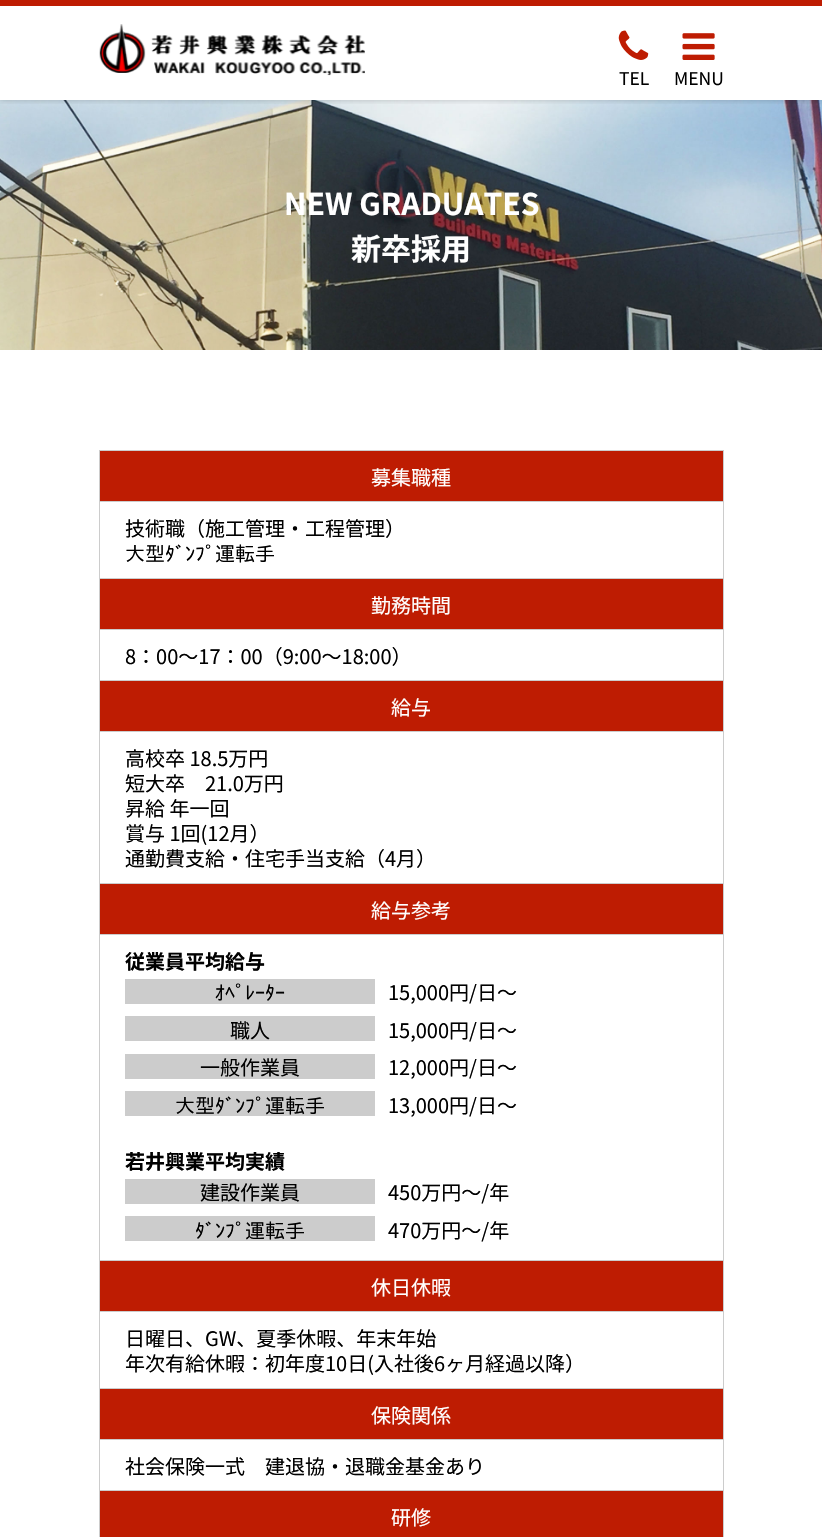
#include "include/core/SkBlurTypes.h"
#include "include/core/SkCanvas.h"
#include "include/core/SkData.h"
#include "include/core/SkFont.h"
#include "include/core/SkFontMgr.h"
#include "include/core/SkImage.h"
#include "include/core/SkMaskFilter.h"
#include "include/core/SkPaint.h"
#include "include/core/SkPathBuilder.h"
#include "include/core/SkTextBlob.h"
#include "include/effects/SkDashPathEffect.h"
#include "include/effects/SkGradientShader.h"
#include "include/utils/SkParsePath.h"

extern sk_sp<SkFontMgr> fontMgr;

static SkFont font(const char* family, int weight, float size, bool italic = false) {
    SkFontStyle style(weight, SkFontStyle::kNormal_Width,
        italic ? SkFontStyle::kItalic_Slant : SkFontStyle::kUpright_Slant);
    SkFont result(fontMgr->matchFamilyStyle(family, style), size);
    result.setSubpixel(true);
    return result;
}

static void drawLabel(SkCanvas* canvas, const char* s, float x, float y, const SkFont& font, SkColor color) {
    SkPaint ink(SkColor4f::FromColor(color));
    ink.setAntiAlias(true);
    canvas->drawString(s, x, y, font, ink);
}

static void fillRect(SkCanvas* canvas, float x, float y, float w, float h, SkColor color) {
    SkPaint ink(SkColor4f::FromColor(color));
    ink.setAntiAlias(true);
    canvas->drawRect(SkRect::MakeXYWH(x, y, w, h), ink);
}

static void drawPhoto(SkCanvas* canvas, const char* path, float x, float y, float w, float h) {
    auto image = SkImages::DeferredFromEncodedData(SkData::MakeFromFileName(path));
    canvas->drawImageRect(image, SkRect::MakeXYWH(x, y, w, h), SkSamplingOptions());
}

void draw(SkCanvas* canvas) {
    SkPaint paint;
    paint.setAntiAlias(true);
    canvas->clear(0xFFFFFFFF);
    drawPhoto(canvas, "assets/img4.png", 0, 100, 822, 250);
    canvas->save();
    canvas->clipRect(SkRect::MakeXYWH(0, 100, 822, 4));
    paint.setColor(0x33000000);
    paint.setMaskFilter(SkMaskFilter::MakeBlur(kNormal_SkBlurStyle, 3));
    canvas->drawRect(SkRect::MakeXYWH(0, 0, 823, 100), paint);
    paint.setMaskFilter(nullptr);
    canvas->restore();
    fillRect(canvas, 0, 0, 822, 6, 0xFFBE1C02);
    drawPhoto(canvas, "assets/img1.png", 99, 24, 266, 52);
    drawPhoto(canvas, "assets/img2.png", 618, 30, 31, 30);
    SkFont font1 = font("Noto Sans JP", 400, 17.5f);
    drawLabel(canvas, "TEL", 619, 85, font1, 0xFF000000);
    drawPhoto(canvas, "assets/img3.png", 682, 33, 33, 27);
    drawLabel(canvas, "MENU", 674, 85, font1, 0xFF000000);
    SkFont font2 = font("Noto Sans JP", 700, 30);
    drawLabel(canvas, "NEW GRADUATES", 284, 215, font2, 0xFFFFFFFF);
    drawLabel(canvas, "新卒採用", 351, 260, font2, 0xFFFFFFFF);
    fillRect(canvas, 99, 450, 625, 1, 0xFFCCCCCC);
    fillRect(canvas, 723, 450, 1, 1087, 0xFFCCCCCC);
    fillRect(canvas, 99, 450, 1, 1087, 0xFFCCCCCC);
    fillRect(canvas, 100, 451, 623, 50, 0xFFBE1C02);
    fillRect(canvas, 100, 501, 623, 1, 0xFFCCCCCC);
    SkFont font3 = font("Noto Sans JP", 400, 20);
    drawLabel(canvas, "募集職種", 371, 485, font3, 0xFFFFFFFF);
    fillRect(canvas, 100, 578, 623, 1, 0xFFCCCCCC);
    drawLabel(canvas, "技術職（施工管理・工程管理）", 125, 536, font3, 0xFF000000);
    SkFont font4 = font("IPAGothic", 400, 20);
    drawLabel(canvas, "大型ﾀﾞﾝﾌﾟ運転手", 125, 561, font4, 0xFF000000);
    fillRect(canvas, 100, 579, 623, 50, 0xFFBE1C02);
    fillRect(canvas, 100, 629, 623, 1, 0xFFCCCCCC);
    drawLabel(canvas, "勤務時間", 371, 613, font3, 0xFFFFFFFF);
    fillRect(canvas, 100, 680, 623, 1, 0xFFCCCCCC);
    drawLabel(canvas, "8：00～17：00（9:00～18:00）", 125, 664, font3, 0xFF000000);
    fillRect(canvas, 100, 681, 623, 50, 0xFFBE1C02);
    fillRect(canvas, 100, 731, 623, 1, 0xFFCCCCCC);
    drawLabel(canvas, "給与", 391, 715, font3, 0xFFFFFFFF);
    fillRect(canvas, 100, 883, 623, 1, 0xFFCCCCCC);
    drawLabel(canvas, "高校卒 18.5万円", 125, 766, font3, 0xFF000000);
    drawLabel(canvas, "短大卒　21.0万円", 125, 791, font3, 0xFF000000);
    drawLabel(canvas, "昇給 年一回", 125, 816, font3, 0xFF000000);
    drawLabel(canvas, "賞与 1回(12月）", 125, 841, font3, 0xFF000000);
    drawLabel(canvas, "通勤費支給・住宅手当支給（4月）", 125, 866, font3, 0xFF000000);
    fillRect(canvas, 100, 884, 623, 50, 0xFFBE1C02);
    fillRect(canvas, 100, 934, 623, 1, 0xFFCCCCCC);
    drawLabel(canvas, "給与参考", 371, 918, font3, 0xFFFFFFFF);
    fillRect(canvas, 100, 1260, 623, 1, 0xFFCCCCCC);
    SkFont font5 = font("Noto Sans JP", 700, 20);
    drawLabel(canvas, "従業員平均給与", 125, 969, font5, 0xFF000000);
    fillRect(canvas, 125, 979, 250, 25, 0xFFCCCCCC);
    drawLabel(canvas, "ｵﾍﾟﾚ ﾀ", 215, 1000, font4, 0xFF000000);
    drawLabel(canvas, "ｰ", 255, 1000, font3, 0xFF000000);
    drawLabel(canvas, "ｰ", 275, 1000, font3, 0xFF000000);
    drawLabel(canvas, "15,000円/日～", 388, 1000, font3, 0xFF000000);
    fillRect(canvas, 125, 1016, 250, 25, 0xFFCCCCCC);
    drawLabel(canvas, "職人", 230, 1038, font3, 0xFF000000);
    drawLabel(canvas, "15,000円/日～", 388, 1038, font3, 0xFF000000);
    fillRect(canvas, 125, 1054, 250, 25, 0xFFCCCCCC);
    drawLabel(canvas, "一般作業員", 200, 1075, font3, 0xFF000000);
    drawLabel(canvas, "12,000円/日～", 388, 1075, font3, 0xFF000000);
    fillRect(canvas, 125, 1091, 250, 25, 0xFFCCCCCC);
    drawLabel(canvas, "大型ﾀﾞﾝﾌﾟ運転手", 175, 1113, font4, 0xFF000000);
    drawLabel(canvas, "13,000円/日～", 388, 1113, font3, 0xFF000000);
    drawLabel(canvas, "若井興業平均実績", 125, 1169, font5, 0xFF000000);
    fillRect(canvas, 125, 1179, 250, 25, 0xFFCCCCCC);
    drawLabel(canvas, "建設作業員", 200, 1200, font3, 0xFF000000);
    drawLabel(canvas, "450万円～/年", 388, 1200, font3, 0xFF000000);
    fillRect(canvas, 125, 1216, 250, 25, 0xFFCCCCCC);
    drawLabel(canvas, "ﾀﾞﾝﾌﾟ運転手", 195, 1238, font4, 0xFF000000);
    drawLabel(canvas, "470万円～/年", 388, 1238, font3, 0xFF000000);
    fillRect(canvas, 100, 1261, 623, 50, 0xFFBE1C02);
    fillRect(canvas, 100, 1311, 623, 1, 0xFFCCCCCC);
    drawLabel(canvas, "休日休暇", 371, 1295, font3, 0xFFFFFFFF);
    fillRect(canvas, 100, 1388, 623, 1, 0xFFCCCCCC);
    drawLabel(canvas, "日曜日、GW、夏季休暇、年末年始", 125, 1346, font3, 0xFF000000);
    drawLabel(canvas, "年次有給休暇：初年度10日(入社後6ヶ月経過以降）", 125, 1371, font3, 0xFF000000);
    fillRect(canvas, 100, 1389, 623, 50, 0xFFBE1C02);
    fillRect(canvas, 100, 1439, 623, 1, 0xFFCCCCCC);
    drawLabel(canvas, "保険関係", 371, 1423, font3, 0xFFFFFFFF);
    fillRect(canvas, 100, 1490, 623, 1, 0xFFCCCCCC);
    drawLabel(canvas, "社会保険一式　建退協・退職金基金あり", 125, 1474, font3, 0xFF000000);
    fillRect(canvas, 100, 1491, 623, 46, 0xFFBE1C02);
    drawLabel(canvas, "研修", 391, 1525, font3, 0xFFFFFFFF);
}
